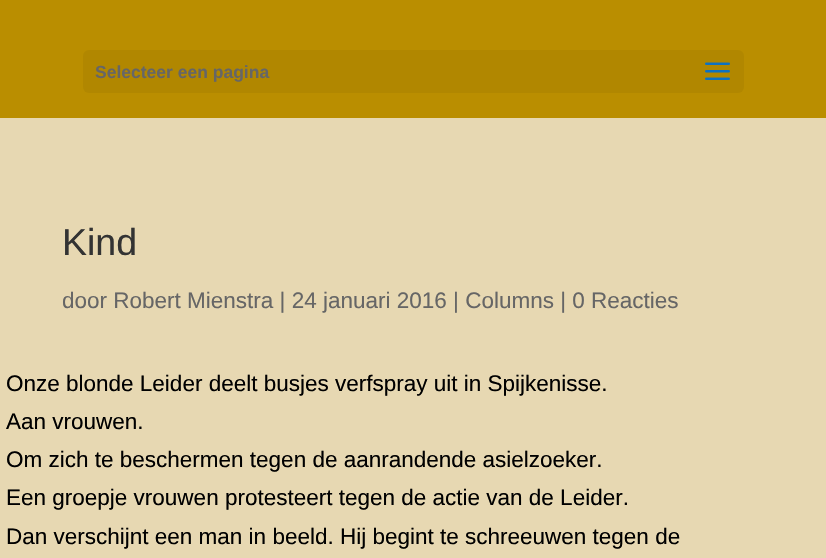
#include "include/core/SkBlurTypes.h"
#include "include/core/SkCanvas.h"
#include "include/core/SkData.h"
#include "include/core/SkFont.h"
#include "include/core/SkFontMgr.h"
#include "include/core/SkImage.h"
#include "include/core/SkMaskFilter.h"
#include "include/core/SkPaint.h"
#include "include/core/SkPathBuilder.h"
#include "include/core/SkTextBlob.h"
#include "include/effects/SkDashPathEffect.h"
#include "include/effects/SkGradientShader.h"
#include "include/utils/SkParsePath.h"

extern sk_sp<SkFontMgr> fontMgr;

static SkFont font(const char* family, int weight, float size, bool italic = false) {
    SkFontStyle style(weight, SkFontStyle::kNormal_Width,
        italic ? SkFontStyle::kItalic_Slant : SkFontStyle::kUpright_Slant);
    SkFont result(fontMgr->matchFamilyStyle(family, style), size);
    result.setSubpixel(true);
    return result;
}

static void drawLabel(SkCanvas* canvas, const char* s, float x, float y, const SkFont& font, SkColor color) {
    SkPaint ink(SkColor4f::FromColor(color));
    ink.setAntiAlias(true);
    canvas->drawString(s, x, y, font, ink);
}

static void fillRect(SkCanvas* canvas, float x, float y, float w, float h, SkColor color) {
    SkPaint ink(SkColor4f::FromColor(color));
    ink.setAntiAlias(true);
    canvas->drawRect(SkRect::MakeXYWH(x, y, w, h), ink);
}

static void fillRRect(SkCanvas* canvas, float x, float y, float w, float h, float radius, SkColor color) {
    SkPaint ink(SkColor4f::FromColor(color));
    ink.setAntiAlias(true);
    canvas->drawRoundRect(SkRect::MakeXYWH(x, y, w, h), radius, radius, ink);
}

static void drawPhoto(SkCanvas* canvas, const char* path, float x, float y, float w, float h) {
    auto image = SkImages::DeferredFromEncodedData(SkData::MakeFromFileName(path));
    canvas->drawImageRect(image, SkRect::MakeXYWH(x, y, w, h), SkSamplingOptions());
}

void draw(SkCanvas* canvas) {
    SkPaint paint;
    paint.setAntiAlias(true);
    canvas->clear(0xFFE7D8B2);
    fillRect(canvas, 0, 0, 826, 118, 0xFFBA8E00);
    fillRRect(canvas, 83, 50, 661, 43, 6, 0xFFB18700);
    SkFont font1 = font("Liberation Sans", 700, 17.5f);
    drawLabel(canvas, "Selecteer een pagina", 95, 78, font1, 0xFF666666);
    drawPhoto(canvas, "assets/img1.png", 705, 62, 25, 18);
    SkFont font2 = font("Liberation Sans", 400, 37.5f);
    drawLabel(canvas, "Kind", 62, 255, font2, 0xFF333333);
    SkFont font3 = font("Liberation Sans", 400, 22.5f);
    drawLabel(canvas, "door Robert Mienstra | 24 januari 2016 | Columns | 0 Reacties", 62, 308, font3, 0xFF666666);
    drawLabel(canvas, "Onze blonde Leider deelt busjes verfspray uit in Spijkenisse.", 6, 391, font3, 0xFF000000);
    drawLabel(canvas, "Aan vrouwen.", 6, 429, font3, 0xFF000000);
    drawLabel(canvas, "Om zich te beschermen tegen de aanrandende asielzoeker.", 6, 467, font3, 0xFF000000);
    drawLabel(canvas, "Een groepje vrouwen protesteert tegen de actie van de Leider.", 6, 505, font3, 0xFF000000);
    drawLabel(canvas, "Dan verschijnt een man in beeld. Hij begint te schreeuwen tegen de", 6, 544, font3, 0xFF000000);
}
